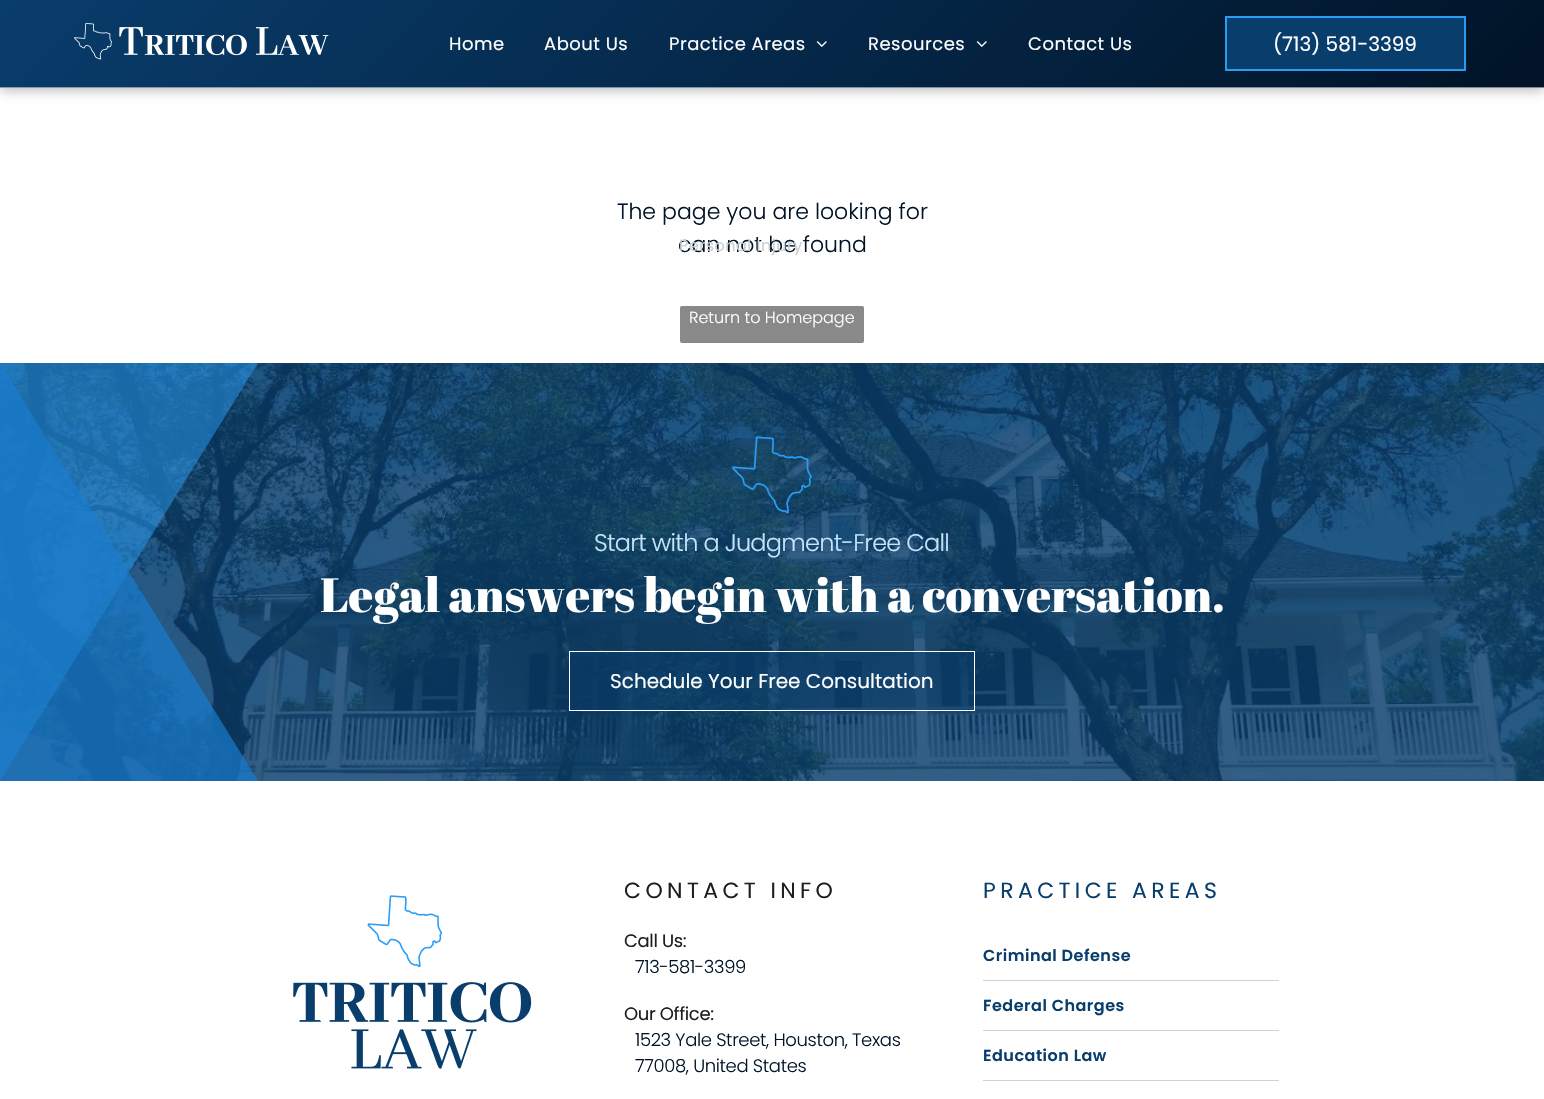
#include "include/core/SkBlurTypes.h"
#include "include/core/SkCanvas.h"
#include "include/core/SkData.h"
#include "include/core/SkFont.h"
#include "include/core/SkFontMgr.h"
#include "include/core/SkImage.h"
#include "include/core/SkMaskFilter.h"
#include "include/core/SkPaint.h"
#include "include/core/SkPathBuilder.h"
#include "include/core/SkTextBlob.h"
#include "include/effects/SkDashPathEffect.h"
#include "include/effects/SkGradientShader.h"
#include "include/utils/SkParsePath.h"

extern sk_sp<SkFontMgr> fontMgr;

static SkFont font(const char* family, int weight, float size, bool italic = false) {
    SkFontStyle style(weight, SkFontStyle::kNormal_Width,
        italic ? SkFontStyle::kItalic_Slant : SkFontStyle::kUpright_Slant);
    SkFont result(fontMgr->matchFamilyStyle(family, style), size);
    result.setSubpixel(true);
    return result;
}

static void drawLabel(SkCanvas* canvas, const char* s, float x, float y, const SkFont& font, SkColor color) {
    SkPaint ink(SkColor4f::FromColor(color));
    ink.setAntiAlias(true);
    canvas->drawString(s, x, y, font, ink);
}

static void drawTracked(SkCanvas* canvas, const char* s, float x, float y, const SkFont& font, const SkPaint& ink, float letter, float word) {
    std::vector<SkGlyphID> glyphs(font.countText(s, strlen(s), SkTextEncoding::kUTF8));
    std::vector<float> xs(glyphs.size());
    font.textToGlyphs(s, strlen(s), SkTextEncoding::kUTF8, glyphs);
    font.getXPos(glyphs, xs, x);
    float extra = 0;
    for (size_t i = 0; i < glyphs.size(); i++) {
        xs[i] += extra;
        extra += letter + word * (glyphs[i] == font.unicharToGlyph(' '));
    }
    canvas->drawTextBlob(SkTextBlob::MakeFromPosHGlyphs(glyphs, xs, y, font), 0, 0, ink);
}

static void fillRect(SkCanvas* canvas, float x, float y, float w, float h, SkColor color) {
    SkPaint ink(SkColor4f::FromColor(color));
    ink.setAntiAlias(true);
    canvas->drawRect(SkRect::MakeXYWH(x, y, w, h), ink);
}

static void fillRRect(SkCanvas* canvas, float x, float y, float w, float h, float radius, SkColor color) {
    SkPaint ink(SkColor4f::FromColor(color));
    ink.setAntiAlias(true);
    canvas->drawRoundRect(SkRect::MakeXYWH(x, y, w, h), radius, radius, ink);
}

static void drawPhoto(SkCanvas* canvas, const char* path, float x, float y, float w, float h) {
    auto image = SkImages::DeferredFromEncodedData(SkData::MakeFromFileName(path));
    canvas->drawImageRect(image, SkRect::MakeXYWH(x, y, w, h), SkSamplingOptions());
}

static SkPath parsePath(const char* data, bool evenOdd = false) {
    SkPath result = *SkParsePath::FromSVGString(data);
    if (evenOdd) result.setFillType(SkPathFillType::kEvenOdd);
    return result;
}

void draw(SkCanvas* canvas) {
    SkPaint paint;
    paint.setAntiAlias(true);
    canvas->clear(0xFFFFFFFF);
    paint.setColor(0x40000000);
    paint.setMaskFilter(SkMaskFilter::MakeBlur(kNormal_SkBlurStyle, 5.5f));
    canvas->drawRect(SkRect::MakeXYWH(0, 3, 1544, 88), paint);
    paint.setMaskFilter(nullptr);
    {
        const SkColor colors[] = {0xFF093D6C, 0xFF011327};
        const float stops[] = {0, 1};
        const SkPoint ends[] = {{364, -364}, {1180, 452}};
        paint.setShader(SkGradientShader::MakeLinear(ends, colors, stops, 2, SkTileMode::kClamp));
        paint.setAlpha(255);
    }
    canvas->drawRect(SkRect::MakeXYWH(0, 0, 1544, 88), paint);
    fillRect(canvas, 0, 87, 1544, 1, 0x80FFFFFF);
    drawPhoto(canvas, "assets/img1.png", 74, 23, 255, 37);
    SkFont font1 = font("Poppins", 400, 18);
    paint.setShader(nullptr);
    paint.setColor(0xFFFFFFFF);
    drawTracked(canvas, "Home", 449, 50, font1, paint, 0.5f, 0);
    drawTracked(canvas, "About Us", 544, 50, font1, paint, 0.5f, 0);
    drawTracked(canvas, "Practice Areas", 669, 50, font1, paint, 0.5f, 0);
    drawPhoto(canvas, "assets/img2.png", 816, 41, 11, 6);
    SkFont font2 = font("Poppins", 300, 22);
    drawLabel(canvas, "can not be found", 678, 252, font2, 0xFF011327);
    SkFont font3 = font("Poppins", 400, 16);
    paint.setColor(0xFFCBCFD3);
    drawTracked(canvas, "Personal Injury", 679, 251, font3, paint, 0.5f, 0);
    paint.setColor(0xFFFFFFFF);
    drawTracked(canvas, "Resources", 868, 50, font1, paint, 0.5f, 0);
    drawPhoto(canvas, "assets/img3.png", 976, 41, 11, 6);
    drawTracked(canvas, "Contact Us", 1028, 50, font1, paint, 0.5f, 0);
    paint.setColor(0xFF093D6C);
    canvas->drawRect(SkRect::MakeXYWH(1226, 17, 239, 53), paint);
    paint.setStroke(true);
    paint.setStrokeWidth(2);
    paint.setColor(0xFF299DF4);
    canvas->drawRect(SkRect::MakeXYWH(1226, 17, 239, 53), paint);
    SkFont font4 = font("Poppins", 400, 20);
    drawLabel(canvas, "(713) 581-3399", 1273, 51, font4, 0xFFFFFFFF);
    drawLabel(canvas, "The page you are looking for", 617, 219, font2, 0xFF011327);
    fillRRect(canvas, 680, 306, 184, 37, 2, 0xFF898989);
    SkFont font5 = font("Poppins", 300, 16);
    drawLabel(canvas, "Return to Homepage", 689, 323, font5, 0xFFFFFFFF);
    drawPhoto(canvas, "assets/img4.png", 0, 363, 1544, 418);
    paint.setStroke(false);
    paint.setColor(0x802A9DF4);
    canvas->drawPath(parsePath("M0 781L258 363H0Z"), paint);
    paint.setColor(0xB3187BCD);
    canvas->drawPath(parsePath("M0 363L258 781H0Z"), paint);
    drawPhoto(canvas, "assets/img5.png", 732, 436, 80, 78);
    SkFont font6 = font("Poppins", 300, 24);
    paint.setColor(0xFFC5E4FC);
    drawTracked(canvas, "Start with a Judgment-Free Call", 594, 551, font6, paint, -0.75f, 0);
    SkFont font7 = font("Abril Fatface", 400, 48);
    drawLabel(canvas, "Legal answers begin with a conversation.", 320, 612, font7, 0xFFFFFFFF);
    paint.setColor(0x80093D6C);
    canvas->drawRect(SkRect::MakeXYWH(569.5f, 651.5f, 405, 59), paint);
    paint.setStroke(true);
    paint.setStrokeWidth(1);
    paint.setColor(0xFFFFFFFF);
    canvas->drawRect(SkRect::MakeXYWH(569.5f, 651.5f, 405, 59), paint);
    drawLabel(canvas, "Schedule Your Free Consultation", 610, 688, font4, 0xFFFFFFFF);
    drawPhoto(canvas, "assets/img6.png", 293, 895, 239, 174);
    SkFont font8 = font("Poppins", 400, 22);
    paint.setStroke(false);
    paint.setColor(0xFF1E1E1E);
    drawTracked(canvas, "CONTACT INFO", 624, 898, font8, paint, 4.4f, 0);
    drawTracked(canvas, "Call Us:", 624, 947, font1, paint, -0.35f, 0);
    SkFont font9 = font("Poppins", 300, 18);
    paint.setColor(0xFF011327);
    drawTracked(canvas, "713-581-3399", 635, 973, font9, paint, -0.35f, 0);
    paint.setColor(0xFF1E1E1E);
    drawTracked(canvas, "Our Office:", 624, 1020, font1, paint, -0.35f, 0);
    paint.setColor(0xFF011327);
    drawTracked(canvas, "1523 Yale Street, Houston, Texas", 635, 1046, font9, paint, -0.35f, 0);
    drawTracked(canvas, "77008, United States", 635, 1072, font9, paint, -0.35f, 0);
    paint.setColor(0xFF093D6C);
    drawTracked(canvas, "PRACTICE AREAS", 983, 898, font8, paint, 4.4f, 0);
    SkFont font10 = font("Poppins", 600, 16);
    drawTracked(canvas, "Criminal Defense", 983, 961, font10, paint, 0.5f, 0);
    fillRect(canvas, 983, 980, 296, 1, 0xFFD1D1D1);
    drawTracked(canvas, "Federal Charges", 983, 1011, font10, paint, 0.5f, 0);
    fillRect(canvas, 983, 1030, 296, 1, 0xFFD1D1D1);
    drawTracked(canvas, "Education Law", 983, 1061, font10, paint, 0.5f, 0);
    fillRect(canvas, 983, 1080, 296, 1, 0xFFD1D1D1);
}
